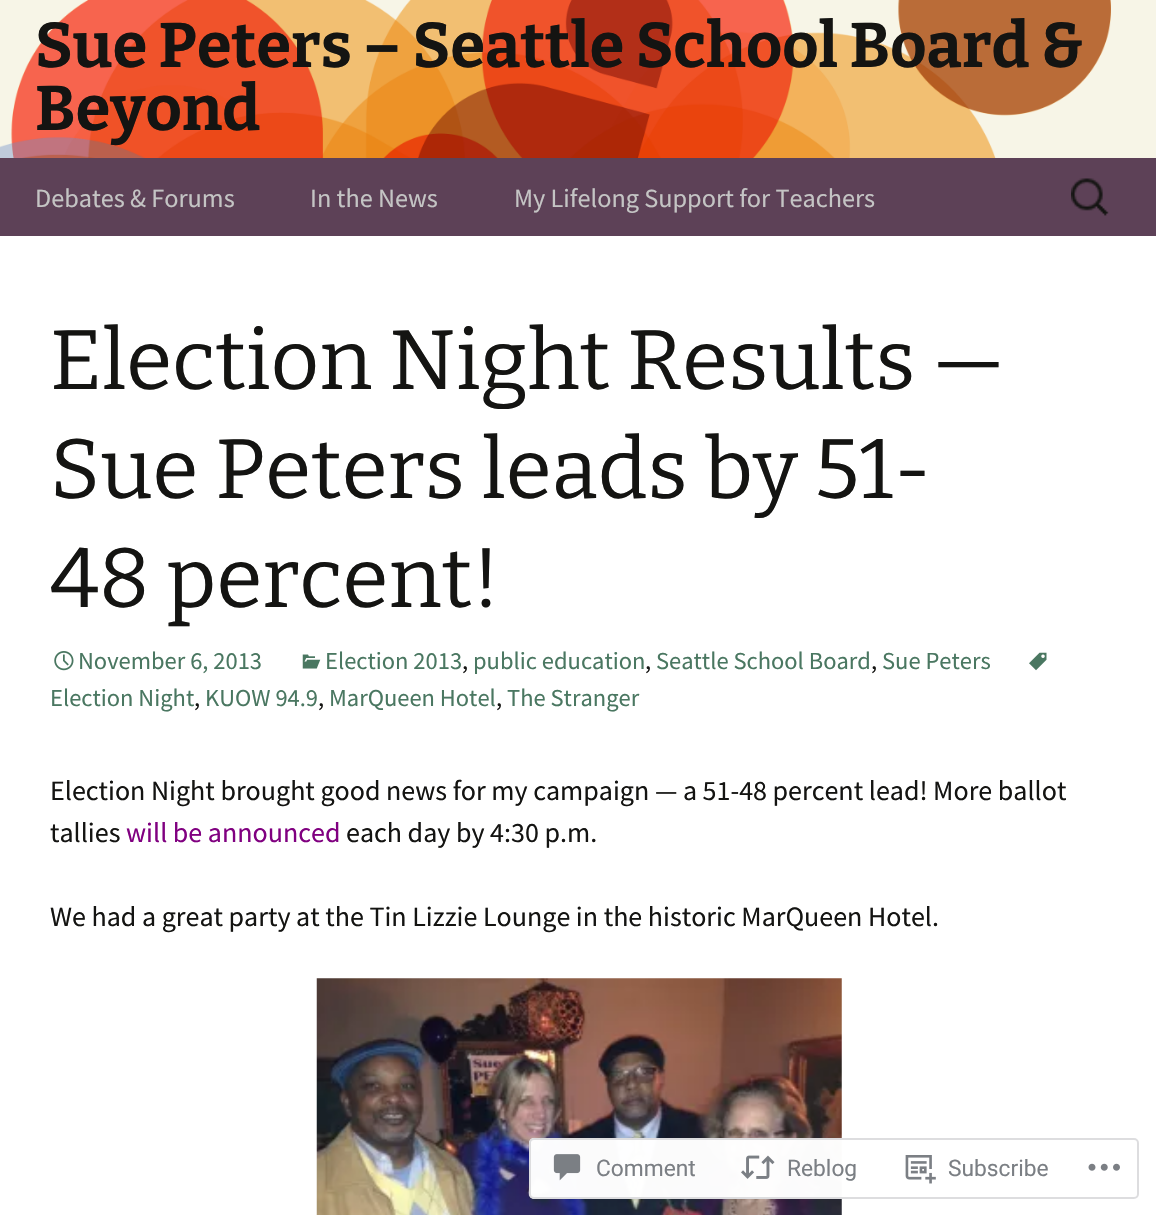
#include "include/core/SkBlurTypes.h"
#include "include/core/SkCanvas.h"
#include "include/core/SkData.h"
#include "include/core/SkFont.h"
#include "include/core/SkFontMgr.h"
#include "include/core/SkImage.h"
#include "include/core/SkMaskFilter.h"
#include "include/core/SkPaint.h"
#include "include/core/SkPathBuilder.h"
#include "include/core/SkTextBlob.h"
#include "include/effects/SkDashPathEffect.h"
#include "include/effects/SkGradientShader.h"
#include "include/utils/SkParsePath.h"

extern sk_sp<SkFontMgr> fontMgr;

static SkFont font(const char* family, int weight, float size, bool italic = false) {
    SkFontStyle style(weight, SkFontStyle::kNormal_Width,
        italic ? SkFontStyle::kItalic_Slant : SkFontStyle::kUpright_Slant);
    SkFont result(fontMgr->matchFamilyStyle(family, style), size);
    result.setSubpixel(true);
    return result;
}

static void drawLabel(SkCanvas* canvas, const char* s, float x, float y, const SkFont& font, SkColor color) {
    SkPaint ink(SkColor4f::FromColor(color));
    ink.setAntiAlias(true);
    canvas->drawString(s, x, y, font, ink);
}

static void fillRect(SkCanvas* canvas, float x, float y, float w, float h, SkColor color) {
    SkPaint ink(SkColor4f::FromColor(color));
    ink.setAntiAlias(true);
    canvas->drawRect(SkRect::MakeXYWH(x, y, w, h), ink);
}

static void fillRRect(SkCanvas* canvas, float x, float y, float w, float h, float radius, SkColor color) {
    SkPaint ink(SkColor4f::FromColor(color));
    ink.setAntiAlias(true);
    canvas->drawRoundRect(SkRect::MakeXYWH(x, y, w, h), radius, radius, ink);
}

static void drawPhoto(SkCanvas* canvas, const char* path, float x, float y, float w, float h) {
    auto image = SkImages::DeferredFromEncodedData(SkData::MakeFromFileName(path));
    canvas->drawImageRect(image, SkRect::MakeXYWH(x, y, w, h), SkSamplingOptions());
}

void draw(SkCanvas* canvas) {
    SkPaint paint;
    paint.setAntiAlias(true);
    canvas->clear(0xFFFFFFFF);
    drawPhoto(canvas, "assets/img1.png", 0, 0, 1156, 158);
    SkFont font1 = font("Bitter", 700, 63);
    drawLabel(canvas, "Sue Peters – Seattle School Board &", 35, 67, font1, 0xFF141412);
    drawLabel(canvas, "Beyond", 35, 130, font1, 0xFF141412);
    fillRect(canvas, 0, 158, 1156, 78, 0xFF5D4157);
    SkFont font2 = font("Source Sans Pro", 400, 26.25f);
    drawLabel(canvas, "Debates & Forums", 35, 207, font2, 0xFFC4C4C4);
    drawLabel(canvas, "In the News", 310, 207, font2, 0xFFC4C4C4);
    drawLabel(canvas, "My Lifelong Support for Teachers", 514, 207, font2, 0xFFC4C4C4);
    drawPhoto(canvas, "assets/img2.png", 1071, 178, 38, 38);
    SkFont font3 = font("Bitter", 400, 84);
    drawLabel(canvas, "Election Night Results —", 50, 389, font3, 0xFF141412);
    drawLabel(canvas, "Sue Peters leads by 51-", 50, 498, font3, 0xFF141412);
    drawLabel(canvas, "48 percent!", 50, 607, font3, 0xFF141412);
    drawPhoto(canvas, "assets/img3.png", 54, 651, 20, 20);
    SkFont font4 = font("Source Sans Pro", 400, 24.5f);
    drawLabel(canvas, "November 6, 2013", 78, 669, font4, 0xFF4A7761);
    drawPhoto(canvas, "assets/img4.png", 302, 654, 19, 15);
    drawLabel(canvas, "Election 2013", 325, 669, font4, 0xFF4A7761);
    drawLabel(canvas, ",", 462, 669, font4, 0xFF141412);
    drawLabel(canvas, "public education", 473, 669, font4, 0xFF4A7761);
    drawLabel(canvas, ",", 645, 669, font4, 0xFF141412);
    drawLabel(canvas, "Seattle School Board", 656, 669, font4, 0xFF4A7761);
    drawLabel(canvas, ",", 871, 669, font4, 0xFF141412);
    drawLabel(canvas, "Sue Peters", 882, 669, font4, 0xFF4A7761);
    drawPhoto(canvas, "assets/img5.png", 1029, 652, 18, 19);
    drawLabel(canvas, "Election Night", 50, 706, font4, 0xFF4A7761);
    drawLabel(canvas, ",", 194, 706, font4, 0xFF141412);
    drawLabel(canvas, "KUOW 94.9", 205, 706, font4, 0xFF4A7761);
    drawLabel(canvas, ",", 318, 706, font4, 0xFF141412);
    drawLabel(canvas, "MarQueen Hotel", 329, 706, font4, 0xFF4A7761);
    drawLabel(canvas, ",", 496, 706, font4, 0xFF141412);
    drawLabel(canvas, "The Stranger", 507, 706, font4, 0xFF4A7761);
    SkFont font5 = font("Source Sans Pro", 400, 28);
    drawLabel(canvas, "Election Night brought good news for my campaign — a 51-48 percent lead! More ballot", 50, 800, font5, 0xFF141412);
    drawLabel(canvas, "tallies", 50, 842, font5, 0xFF141412);
    drawLabel(canvas, "will be announced", 126, 842, font5, 0xFF800080);
    drawLabel(canvas, "each day by 4:30 p.m.", 346, 842, font5, 0xFF141412);
    drawLabel(canvas, "We had a great party at the Tin Lizzie Lounge in the historic MarQueen Hotel.", 50, 926, font5, 0xFF141412);
    drawPhoto(canvas, "assets/img6.png", 316, 978, 526, 237);
    fillRRect(canvas, 529, 1138, 610, 61, 5, 0xFAFFFFFF);
    paint.setStroke(true);
    paint.setStrokeWidth(2);
    paint.setColor(0xFADCDCDE);
    canvas->drawRoundRect(SkRect::MakeXYWH(530, 1139, 608, 59), 4, 4, paint);
    drawPhoto(canvas, "assets/img7.png", 553, 1154, 28, 27);
    SkFont font6 = font("Roboto", 400, 22.75f);
    drawLabel(canvas, "Comment", 596, 1176, font6, 0xFF7B7F84);
    drawPhoto(canvas, "assets/img8.png", 741, 1155, 34, 24);
    drawLabel(canvas, "Reblog", 787, 1176, font6, 0xFF7B7F84);
    drawPhoto(canvas, "assets/img9.png", 905, 1155, 31, 29);
    drawLabel(canvas, "Subscribe", 948, 1176, font6, 0xFF7B7F84);
    drawPhoto(canvas, "assets/img10.png", 1088, 1163, 32, 8);
}
